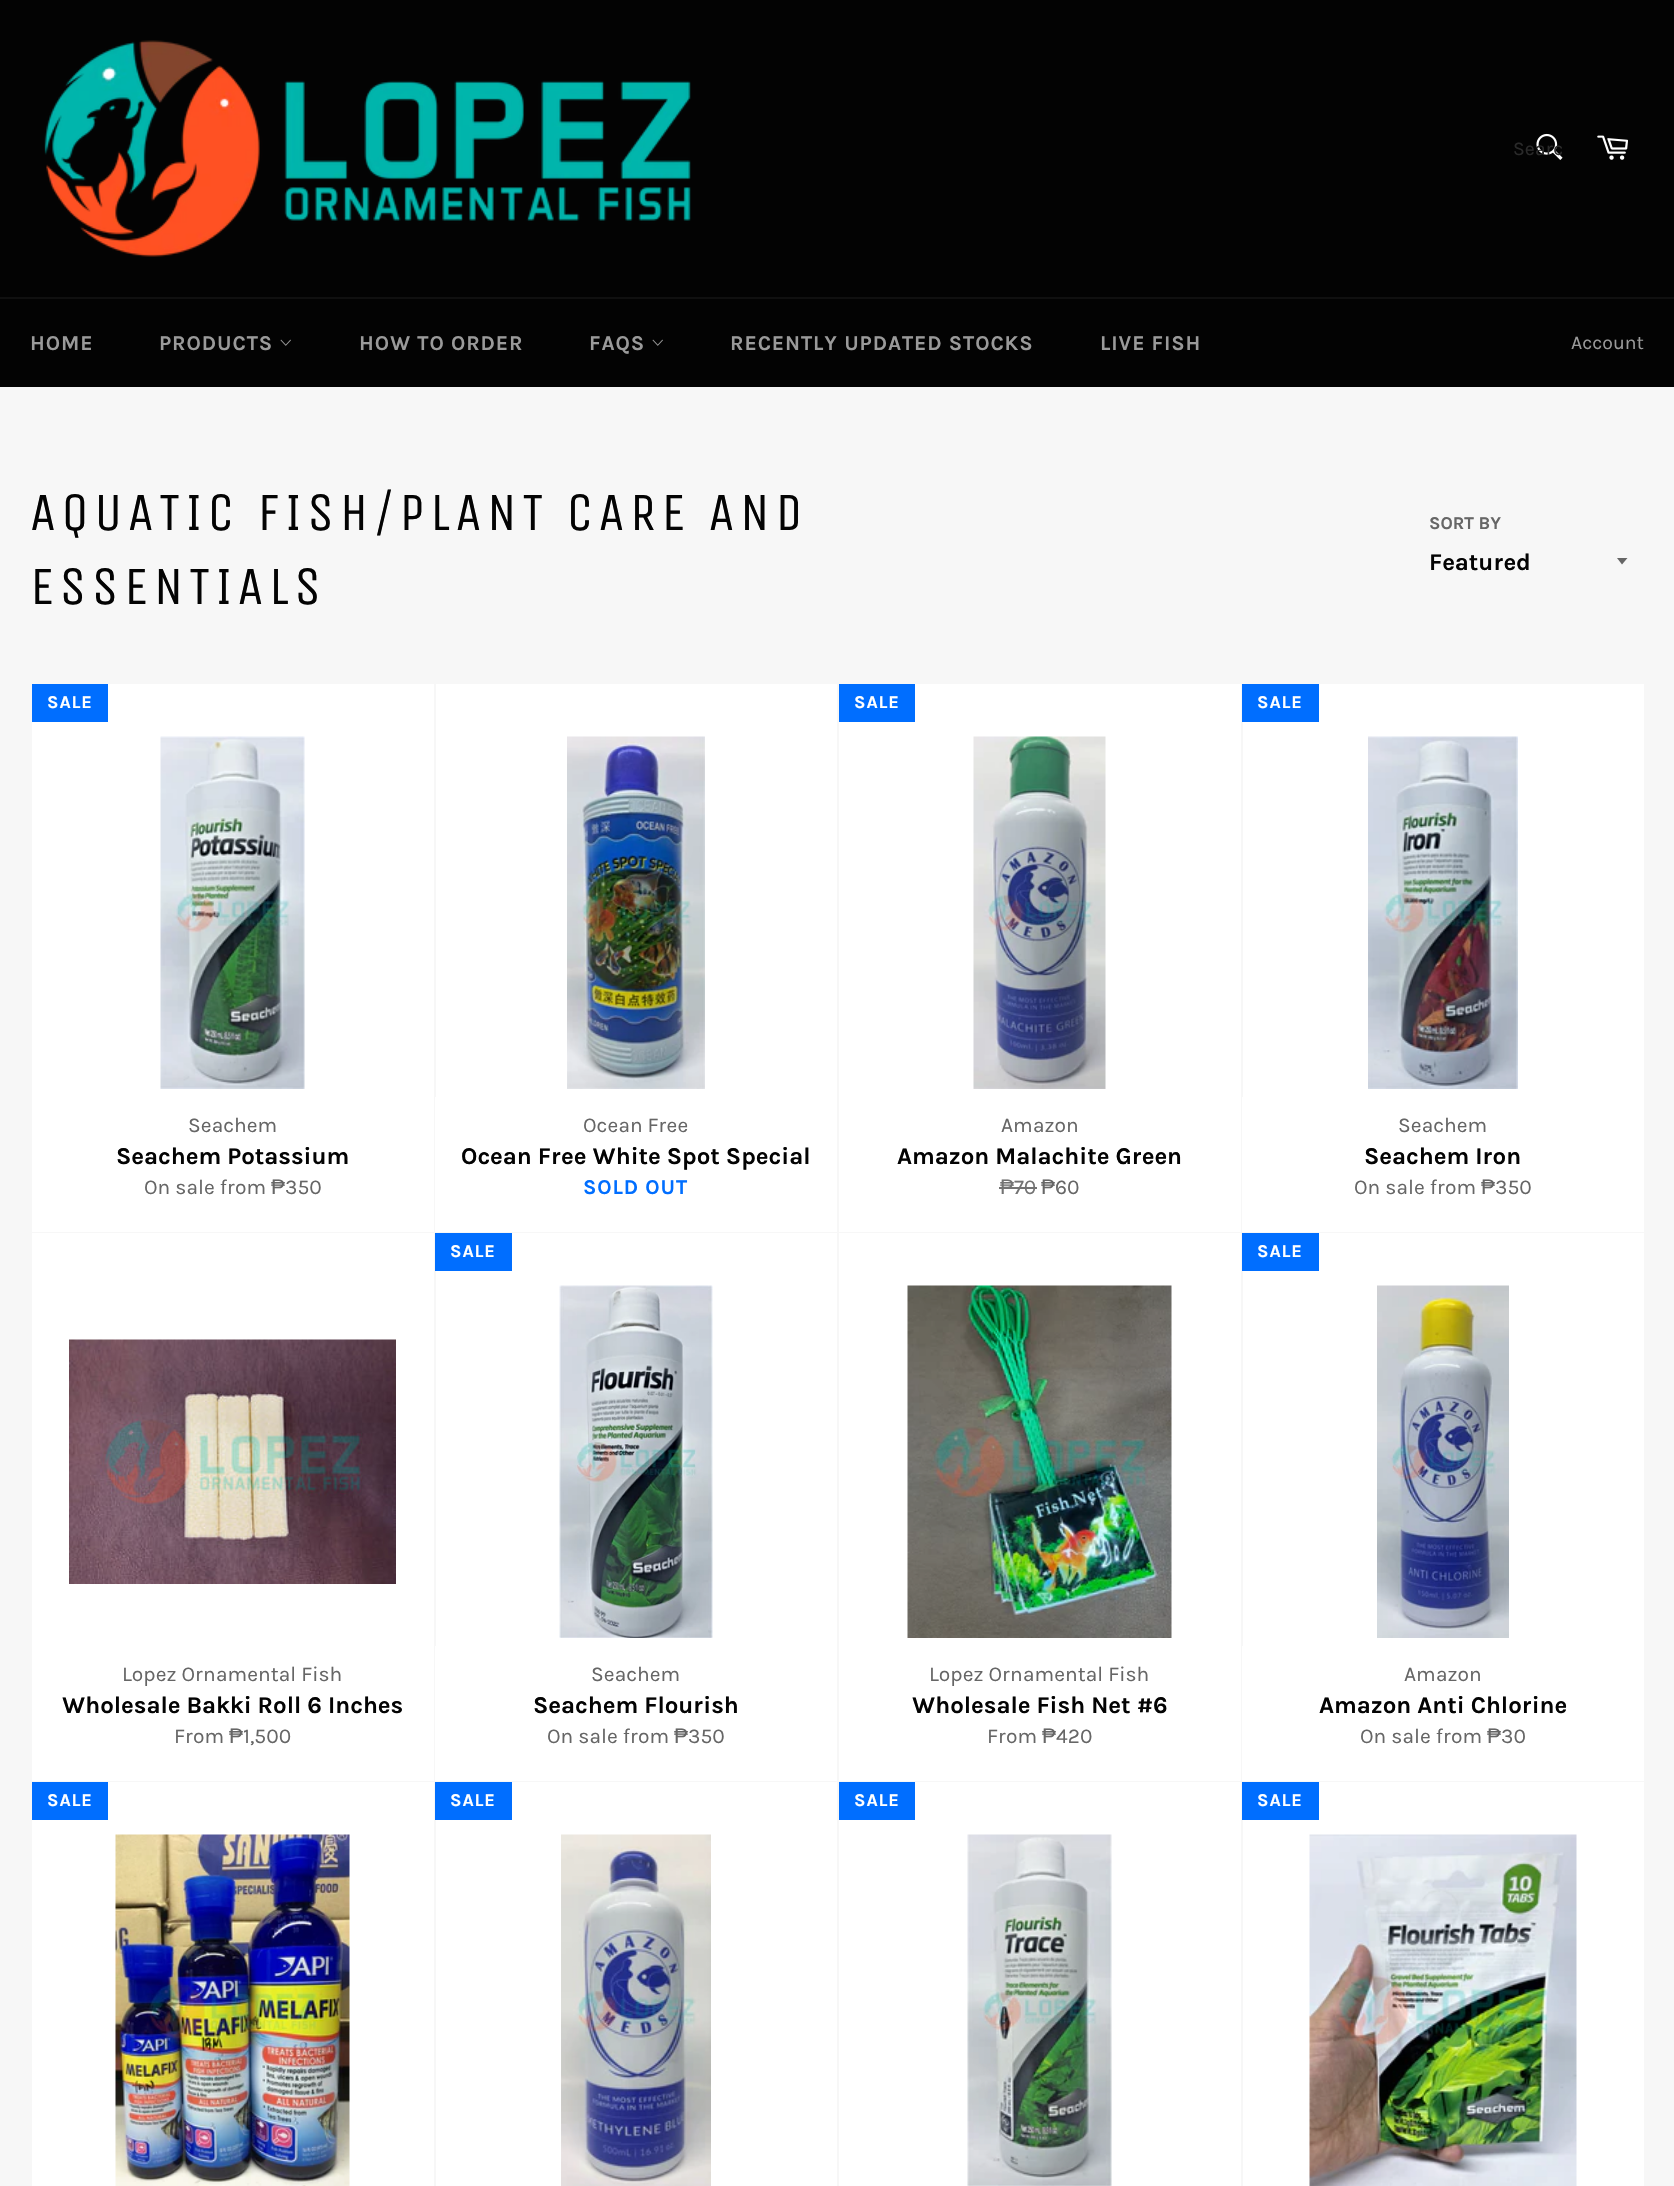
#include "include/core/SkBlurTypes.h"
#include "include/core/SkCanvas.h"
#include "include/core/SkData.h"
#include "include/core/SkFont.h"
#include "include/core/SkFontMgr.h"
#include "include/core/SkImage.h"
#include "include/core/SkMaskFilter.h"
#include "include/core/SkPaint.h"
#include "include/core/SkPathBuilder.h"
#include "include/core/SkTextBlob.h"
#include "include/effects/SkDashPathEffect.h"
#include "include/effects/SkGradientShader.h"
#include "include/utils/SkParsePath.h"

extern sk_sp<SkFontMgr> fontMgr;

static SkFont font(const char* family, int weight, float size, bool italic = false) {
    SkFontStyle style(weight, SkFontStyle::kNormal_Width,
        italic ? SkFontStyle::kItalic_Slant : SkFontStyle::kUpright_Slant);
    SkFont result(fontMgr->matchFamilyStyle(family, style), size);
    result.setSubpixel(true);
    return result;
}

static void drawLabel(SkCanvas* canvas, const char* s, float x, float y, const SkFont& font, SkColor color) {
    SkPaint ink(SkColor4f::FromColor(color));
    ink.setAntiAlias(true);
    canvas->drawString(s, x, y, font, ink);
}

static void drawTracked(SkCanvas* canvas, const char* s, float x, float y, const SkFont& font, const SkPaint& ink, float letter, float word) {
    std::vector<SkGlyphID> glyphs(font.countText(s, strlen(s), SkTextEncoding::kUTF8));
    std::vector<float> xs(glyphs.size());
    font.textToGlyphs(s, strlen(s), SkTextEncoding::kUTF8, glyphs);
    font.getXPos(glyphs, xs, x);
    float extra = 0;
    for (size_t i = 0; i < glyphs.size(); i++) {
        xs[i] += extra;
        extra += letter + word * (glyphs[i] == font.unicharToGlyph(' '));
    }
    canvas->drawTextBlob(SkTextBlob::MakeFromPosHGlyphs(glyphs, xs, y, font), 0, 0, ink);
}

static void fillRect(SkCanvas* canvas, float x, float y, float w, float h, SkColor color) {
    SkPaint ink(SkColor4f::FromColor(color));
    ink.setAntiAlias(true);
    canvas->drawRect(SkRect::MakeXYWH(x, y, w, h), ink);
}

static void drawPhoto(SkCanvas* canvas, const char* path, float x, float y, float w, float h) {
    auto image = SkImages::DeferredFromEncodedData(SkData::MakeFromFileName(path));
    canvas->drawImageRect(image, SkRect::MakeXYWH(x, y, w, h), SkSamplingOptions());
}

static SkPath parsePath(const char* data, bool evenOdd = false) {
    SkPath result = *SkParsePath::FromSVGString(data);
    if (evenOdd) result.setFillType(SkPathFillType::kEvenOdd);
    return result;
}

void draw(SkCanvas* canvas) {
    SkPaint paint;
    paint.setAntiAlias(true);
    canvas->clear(0xFFF7F7F7);
    fillRect(canvas, 0, 0, 1674, 297, 0xFF030303);
    drawPhoto(canvas, "assets/img1.png", 44, 40, 647, 217);
    drawPhoto(canvas, "assets/img2.png", 1536, 133, 27, 27);
    canvas->save();
    canvas->clipRect(SkRect::MakeXYWH(1514, 138, 48, 23));
    SkFont font1 = font("Karla", 400, 19.5f);
    drawLabel(canvas, "Searc", 1513, 155, font1, 0xFF2A2A2A);
    canvas->restore();
    drawPhoto(canvas, "assets/img3.png", 1597, 135, 31, 25);
    fillRect(canvas, 0, 299, 1674, 88, 0xFF030303);
    fillRect(canvas, 0, 297, 1674, 2, 0xFF101010);
    SkFont font2 = font("Karla", 700, 21);
    paint.setColor(0xFF9A9A9A);
    drawTracked(canvas, "HOME", 30, 350, font2, paint, 0.9f, 0);
    drawTracked(canvas, "PRODUCTS", 159, 350, font2, paint, 0.9f, 0);
    drawPhoto(canvas, "assets/img4.png", 280, 339, 11, 7);
    drawTracked(canvas, "HOW TO ORDER", 359, 350, font2, paint, 0.9f, 0);
    drawTracked(canvas, "FAQS", 589, 350, font2, paint, 0.9f, 0);
    drawPhoto(canvas, "assets/img4.png", 652, 339, 11, 7);
    drawTracked(canvas, "RECENTLY UPDATED STOCKS", 730, 350, font2, paint, 0.9f, 0);
    drawTracked(canvas, "LIVE FISH", 1100, 350, font2, paint, 0.9f, 0);
    drawLabel(canvas, "Account", 1571, 349, font1, 0xFF9A9A9A);
    SkFont font3 = font("Unica One", 400, 54);
    paint.setColor(0xFF030303);
    drawTracked(canvas, "AQUATIC FISH/PLANT CARE AND", 30, 530, font3, paint, 5.4f, 0);
    drawTracked(canvas, "ESSENTIALS", 30, 604, font3, paint, 5.4f, 0);
    SkFont font4 = font("Karla", 700, 18);
    drawLabel(canvas, "SORT BY", 1429, 529, font4, 0xFF666666);
    paint.setColor(0xFF666666);
    canvas->drawPath(parsePath("M1617 558L1622 564.5L1627.5 558Z"), paint);
    SkFont font5 = font("Karla", 700, 24);
    drawLabel(canvas, "Featured", 1429, 570, font5, 0xFF030303);
    fillRect(canvas, 32, 684, 402, 548, 0xFFFFFFFF);
    fillRect(canvas, 32, 684, 76, 38, 0xFF006EFF);
    paint.setColor(0xFFFFFFFF);
    drawTracked(canvas, "SALE", 47, 708, font4, paint, 0.9f, 0);
    drawPhoto(canvas, "assets/img5.png", 160, 736, 145, 353);
    SkFont font6 = font("Karla", 400, 21);
    drawLabel(canvas, "Seachem", 188, 1132, font6, 0xFF666666);
    drawLabel(canvas, "Seachem Potassium", 116, 1164, font5, 0xFF030303);
    drawLabel(canvas, "On sale from", 144, 1194, font6, 0xFF666666);
    SkFont font7 = font("Liberation Sans", 400, 21);
    drawLabel(canvas, "₱", 271, 1194, font7, 0xFF666666);
    drawLabel(canvas, "350", 285, 1194, font6, 0xFF666666);
    fillRect(canvas, 436, 684, 401, 413, 0xFFFFFFFF);
    drawPhoto(canvas, "assets/img6.png", 567, 736, 138, 353);
    fillRect(canvas, 435, 1097, 402, 135, 0xFFFFFFFF);
    drawLabel(canvas, "Ocean Free", 583, 1132, font6, 0xFF666666);
    drawLabel(canvas, "Ocean Free White Spot Special", 461, 1164, font5, 0xFF030303);
    paint.setColor(0xFF006EFF);
    drawTracked(canvas, "SOLD OUT", 583, 1194, font2, paint, 0.9f, 0);
    fillRect(canvas, 839, 684, 402, 548, 0xFFFFFFFF);
    fillRect(canvas, 839, 684, 76, 38, 0xFF006EFF);
    paint.setColor(0xFFFFFFFF);
    drawTracked(canvas, "SALE", 854, 708, font4, paint, 0.9f, 0);
    drawPhoto(canvas, "assets/img7.png", 973, 736, 133, 353);
    drawLabel(canvas, "Amazon", 1001, 1132, font6, 0xFF666666);
    drawLabel(canvas, "Amazon Malachite Green", 897, 1164, font5, 0xFF030303);
    drawLabel(canvas, "₱", 1000, 1194, font7, 0xFF737373);
    drawLabel(canvas, "70", 1014, 1194, font6, 0xFF737373);
    fillRect(canvas, 999, 1187, 38, 2, 0xFF737373);
    drawLabel(canvas, "₱", 1041, 1194, font7, 0xFF666666);
    drawLabel(canvas, "60", 1055, 1194, font6, 0xFF666666);
    fillRect(canvas, 1243, 684, 401, 413, 0xFFFFFFFF);
    fillRect(canvas, 1242, 684, 77, 38, 0xFF006EFF);
    drawTracked(canvas, "SALE", 1257, 708, font4, paint, 0.9f, 0);
    drawPhoto(canvas, "assets/img8.png", 1368, 736, 150, 353);
    fillRect(canvas, 1242, 1097, 402, 135, 0xFFFFFFFF);
    drawLabel(canvas, "Seachem", 1398, 1132, font6, 0xFF666666);
    drawLabel(canvas, "Seachem Iron", 1364, 1164, font5, 0xFF030303);
    drawLabel(canvas, "On sale from", 1354, 1194, font6, 0xFF666666);
    drawLabel(canvas, "₱", 1481, 1194, font7, 0xFF666666);
    drawLabel(canvas, "350", 1495, 1194, font6, 0xFF666666);
    fillRect(canvas, 32, 1233, 402, 548, 0xFFFFFFFF);
    drawPhoto(canvas, "assets/img9.png", 69, 1339, 327, 245);
    drawLabel(canvas, "Lopez Ornamental Fish", 122, 1681, font6, 0xFF666666);
    drawLabel(canvas, "Wholesale Bakki Roll 6 Inches", 62, 1713, font5, 0xFF030303);
    drawLabel(canvas, "From", 174, 1743, font6, 0xFF666666);
    drawLabel(canvas, "₱", 229, 1743, font7, 0xFF666666);
    drawLabel(canvas, "1,500", 243, 1743, font6, 0xFF666666);
    fillRect(canvas, 436, 1233, 401, 413, 0xFFFFFFFF);
    fillRect(canvas, 435, 1233, 77, 38, 0xFF006EFF);
    drawTracked(canvas, "SALE", 450, 1257, font4, paint, 0.9f, 0);
    drawPhoto(canvas, "assets/img10.png", 559, 1285, 154, 353);
    fillRect(canvas, 435, 1646, 402, 135, 0xFFFFFFFF);
    drawLabel(canvas, "Seachem", 591, 1681, font6, 0xFF666666);
    drawLabel(canvas, "Seachem Flourish", 533, 1713, font5, 0xFF030303);
    drawLabel(canvas, "On sale from", 547, 1743, font6, 0xFF666666);
    drawLabel(canvas, "₱", 674, 1743, font7, 0xFF666666);
    drawLabel(canvas, "350", 688, 1743, font6, 0xFF666666);
    fillRect(canvas, 839, 1233, 402, 548, 0xFFFFFFFF);
    drawPhoto(canvas, "assets/img11.png", 907, 1285, 265, 353);
    drawLabel(canvas, "Lopez Ornamental Fish", 929, 1681, font6, 0xFF666666);
    drawLabel(canvas, "Wholesale Fish Net #6", 912, 1713, font5, 0xFF030303);
    drawLabel(canvas, "From", 987, 1743, font6, 0xFF666666);
    drawLabel(canvas, "₱", 1042, 1743, font7, 0xFF666666);
    drawLabel(canvas, "420", 1056, 1743, font6, 0xFF666666);
    fillRect(canvas, 1243, 1233, 401, 413, 0xFFFFFFFF);
    fillRect(canvas, 1242, 1233, 77, 38, 0xFF006EFF);
    drawTracked(canvas, "SALE", 1257, 1257, font4, paint, 0.9f, 0);
    drawPhoto(canvas, "assets/img12.png", 1377, 1285, 132, 353);
    fillRect(canvas, 1242, 1646, 402, 135, 0xFFFFFFFF);
    drawLabel(canvas, "Amazon", 1404, 1681, font6, 0xFF666666);
    drawLabel(canvas, "Amazon Anti Chlorine", 1319, 1713, font5, 0xFF030303);
    drawLabel(canvas, "On sale from", 1360, 1743, font6, 0xFF666666);
    drawLabel(canvas, "₱", 1487, 1743, font7, 0xFF666666);
    drawLabel(canvas, "30", 1501, 1743, font6, 0xFF666666);
    fillRect(canvas, 32, 1782, 402, 404, 0xFFFFFFFF);
    fillRect(canvas, 32, 1782, 76, 38, 0xFF006EFF);
    drawTracked(canvas, "SALE", 47, 1806, font4, paint, 0.9f, 0);
    drawPhoto(canvas, "assets/img13.png", 115, 1834, 235, 352);
    fillRect(canvas, 436, 1782, 401, 404, 0xFFFFFFFF);
    fillRect(canvas, 435, 1782, 77, 38, 0xFF006EFF);
    drawTracked(canvas, "SALE", 450, 1806, font4, paint, 0.9f, 0);
    drawPhoto(canvas, "assets/img14.png", 561, 1834, 150, 352);
    fillRect(canvas, 839, 1782, 402, 404, 0xFFFFFFFF);
    fillRect(canvas, 839, 1782, 76, 38, 0xFF006EFF);
    drawTracked(canvas, "SALE", 854, 1806, font4, paint, 0.9f, 0);
    drawPhoto(canvas, "assets/img15.png", 967, 1834, 145, 352);
    fillRect(canvas, 1243, 1782, 401, 404, 0xFFFFFFFF);
    fillRect(canvas, 1242, 1782, 77, 38, 0xFF006EFF);
    drawTracked(canvas, "SALE", 1257, 1806, font4, paint, 0.9f, 0);
    drawPhoto(canvas, "assets/img16.png", 1309, 1834, 268, 352);
}
